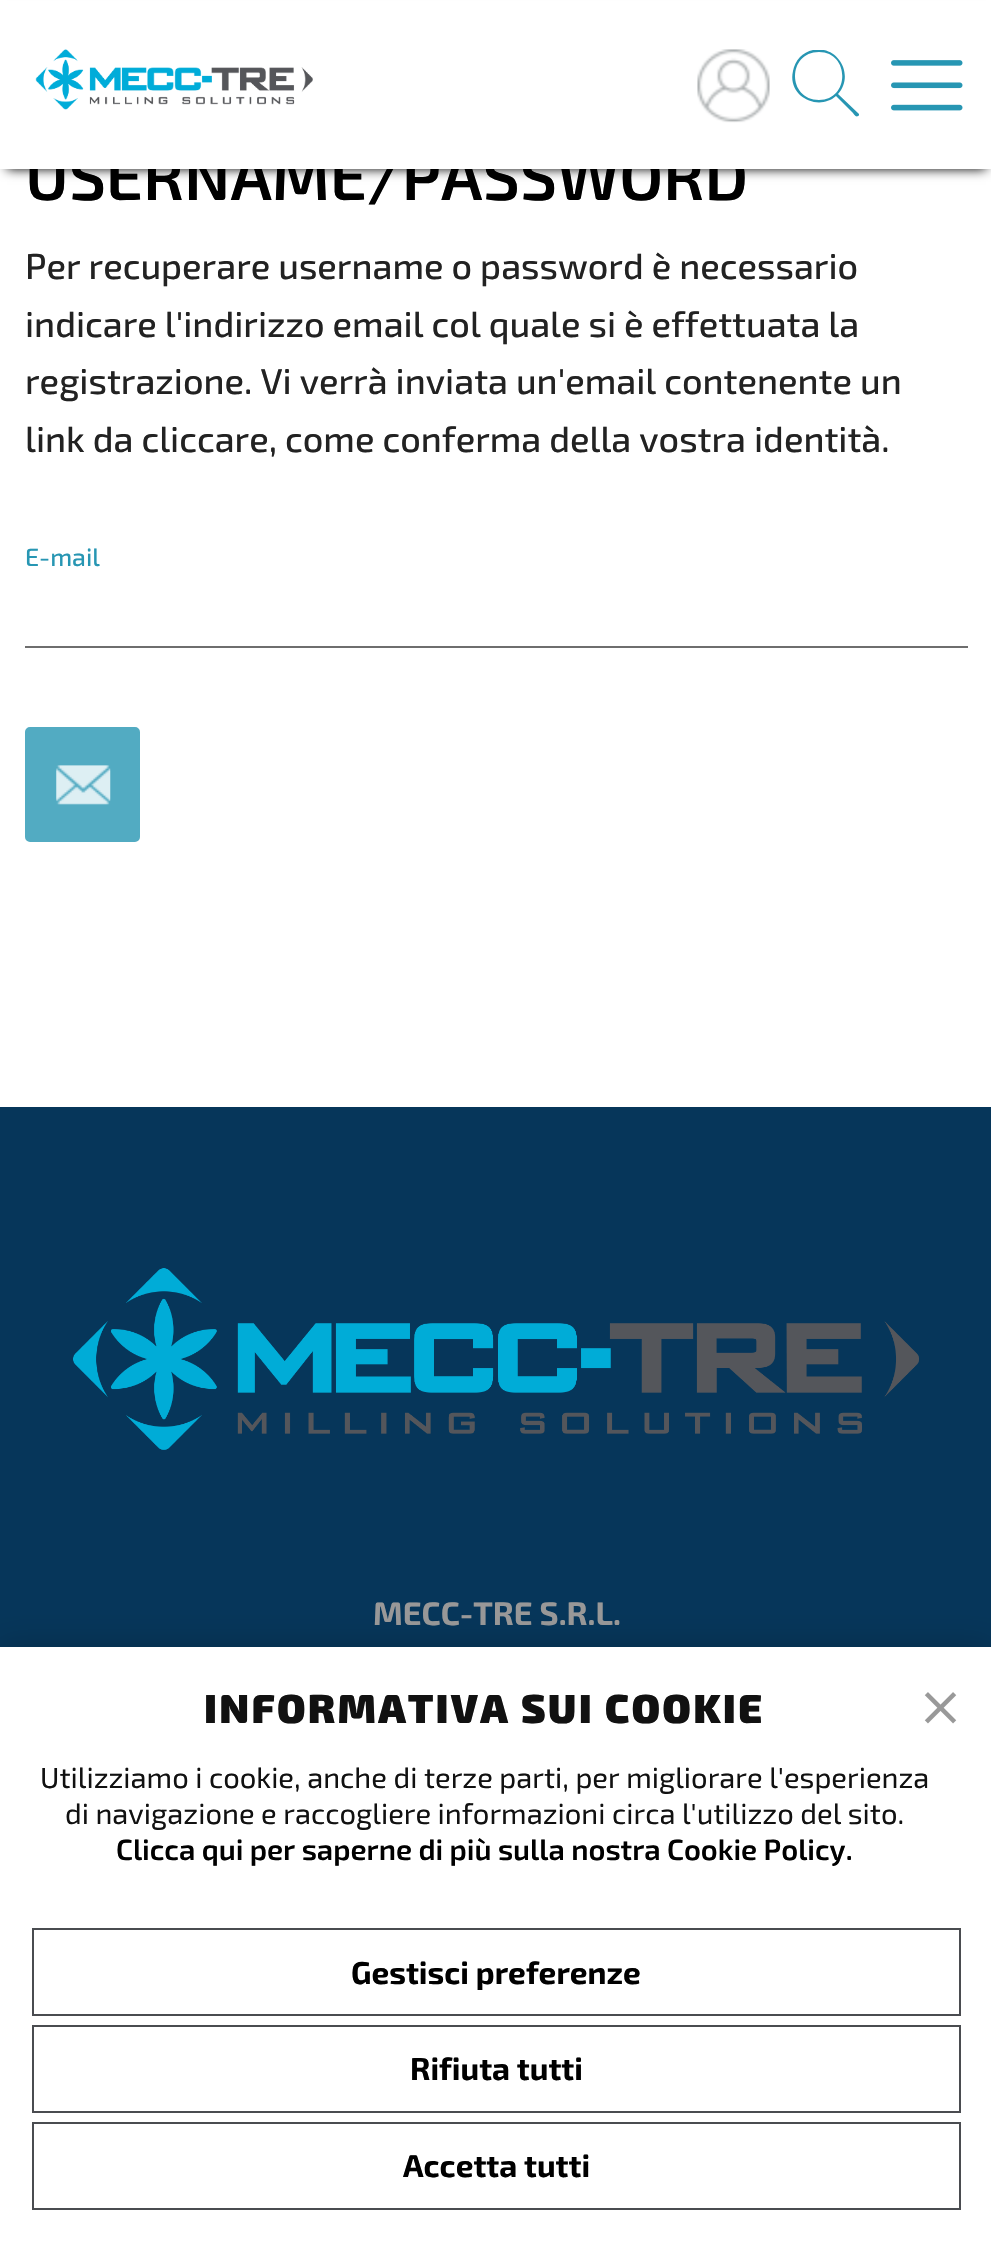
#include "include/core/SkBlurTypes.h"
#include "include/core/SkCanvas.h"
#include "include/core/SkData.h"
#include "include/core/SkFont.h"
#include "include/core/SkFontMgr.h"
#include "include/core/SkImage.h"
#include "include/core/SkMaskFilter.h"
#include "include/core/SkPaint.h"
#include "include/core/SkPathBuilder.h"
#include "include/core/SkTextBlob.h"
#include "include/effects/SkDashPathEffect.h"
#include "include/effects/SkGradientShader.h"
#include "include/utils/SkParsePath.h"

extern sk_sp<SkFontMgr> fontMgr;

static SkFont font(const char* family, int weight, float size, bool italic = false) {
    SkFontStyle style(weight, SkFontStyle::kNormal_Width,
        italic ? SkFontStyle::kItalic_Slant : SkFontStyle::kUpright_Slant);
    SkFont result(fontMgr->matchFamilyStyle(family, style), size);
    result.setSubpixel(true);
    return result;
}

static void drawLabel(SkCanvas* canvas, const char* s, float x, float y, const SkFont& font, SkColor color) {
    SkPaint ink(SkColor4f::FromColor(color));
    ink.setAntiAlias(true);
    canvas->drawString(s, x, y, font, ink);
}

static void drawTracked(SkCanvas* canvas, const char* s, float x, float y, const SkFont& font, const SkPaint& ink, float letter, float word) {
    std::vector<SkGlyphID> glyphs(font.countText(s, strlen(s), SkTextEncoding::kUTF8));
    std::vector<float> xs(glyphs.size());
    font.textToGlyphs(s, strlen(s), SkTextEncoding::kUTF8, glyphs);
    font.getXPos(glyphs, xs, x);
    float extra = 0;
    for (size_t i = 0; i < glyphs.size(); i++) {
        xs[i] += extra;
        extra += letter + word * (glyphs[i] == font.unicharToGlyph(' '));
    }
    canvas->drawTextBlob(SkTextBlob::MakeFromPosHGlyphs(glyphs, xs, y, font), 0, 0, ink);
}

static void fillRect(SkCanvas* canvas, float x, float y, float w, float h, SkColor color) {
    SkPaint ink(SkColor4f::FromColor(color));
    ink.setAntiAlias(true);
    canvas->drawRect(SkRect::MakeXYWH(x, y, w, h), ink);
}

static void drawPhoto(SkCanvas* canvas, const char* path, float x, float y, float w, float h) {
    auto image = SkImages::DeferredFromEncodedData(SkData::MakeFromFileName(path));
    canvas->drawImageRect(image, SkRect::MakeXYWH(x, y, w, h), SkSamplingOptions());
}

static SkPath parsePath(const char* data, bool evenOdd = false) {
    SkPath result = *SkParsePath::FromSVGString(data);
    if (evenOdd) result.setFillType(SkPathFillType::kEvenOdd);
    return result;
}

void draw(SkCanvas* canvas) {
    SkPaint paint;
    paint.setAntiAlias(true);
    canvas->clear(0xFFFFFFFF);
    paint.setColor(0xFF000000);
    paint.setMaskFilter(SkMaskFilter::MakeBlur(kNormal_SkBlurStyle, 5.5f));
    canvas->drawRect(SkRect::MakeXYWH(7, 14, 979, 155), paint);
    paint.setMaskFilter(nullptr);
    SkFont font1 = font("Exo 2", 600, 64.75f);
    drawLabel(canvas, "USERNAME/PASSWORD", 25, 200, font1, 0xFF000000);
    fillRect(canvas, 0, 1, 991, 168, 0xFFFFFFFF);
    drawPhoto(canvas, "assets/img1.png", 35, 49, 278, 61);
    drawPhoto(canvas, "assets/img2.png", 697, 49, 73, 74);
    canvas->save();
    canvas->clipRect(SkRect::MakeXYWH(792, 50, 68, 67));
    paint.setColor(0xFF2796B3);
    canvas->drawPath(parsePath("M859 114L838 94C855 75 838 45 813 50C808 51 803 54 800 57C796 61 794 66 793 71C787 96 818 112 836 96L853 113C853 113 856 118 858 116C859 116 859 115 859 114ZM819 100C787 100 787 52 819 52C850 52 850 100 819 100Z"), paint);
    canvas->restore();
    drawPhoto(canvas, "assets/img3.png", 891, 60, 72, 51);
    SkFont font2 = font("Exo 2", 500, 36);
    drawLabel(canvas, "Per recuperare username o password è necessario", 25, 279, font2, 0xFF222222);
    drawLabel(canvas, "indicare l'indirizzo email col quale si è effettuata la", 25, 337, font2, 0xFF222222);
    drawLabel(canvas, "registrazione. Vi verrà inviata un'email contenente un", 25, 394, font2, 0xFF222222);
    drawLabel(canvas, "link da cliccare, come conferma della vostra identità.", 25, 452, font2, 0xFF222222);
    SkFont font3 = font("Exo 2", 500, 25);
    drawLabel(canvas, "E-mail", 25, 566, font3, 0xFF2796B3);
    fillRect(canvas, 25, 646, 943, 2, 0xFF6E6E6E);
    paint.setColor(0xFF52ABC2);
    canvas->drawRoundRect(SkRect::MakeXYWH(26, 728, 113, 113), 4, 4, paint);
    paint.setStroke(true);
    paint.setStrokeWidth(2);
    canvas->drawRoundRect(SkRect::MakeXYWH(26, 728, 113, 113), 4, 4, paint);
    drawPhoto(canvas, "assets/img4.png", 56, 765, 55, 40);
    fillRect(canvas, 0, 1107, 991, 540, 0xFF06365A);
    drawPhoto(canvas, "assets/img5.png", 73, 1268, 846, 182);
    SkFont font4 = font("Exo 2", 700, 32.5f);
    drawLabel(canvas, "MECC-TRE S.R.L.", 373, 1625, font4, 0xFF999999);
    paint.setStroke(false);
    paint.setColor(0x33000000);
    paint.setMaskFilter(SkMaskFilter::MakeBlur(kNormal_SkBlurStyle, 16));
    canvas->drawRect(SkRect::MakeXYWH(0, 1647, 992, 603), paint);
    paint.setMaskFilter(nullptr);
    fillRect(canvas, 0, 1647, 991, 601, 0xFFFFFFFF);
    SkFont font5 = font("Exo 2", 900, 40.5f);
    paint.setColor(0xFF111111);
    drawTracked(canvas, "INFORMATIVA SUI COOKIE", 204, 1723, font5, paint, 2.25f, 0);
    SkFont font6 = font("Exo 2", 400, 29.15f);
    drawLabel(canvas, "Utilizziamo i cookie, anche di terze parti, per migliorare l'esperienza", 40, 1788, font6, 0xFF111111);
    drawLabel(canvas, "di navigazione e raccogliere informazioni circa l'utilizzo del sito.", 65, 1824, font6, 0xFF111111);
    SkFont font7 = font("Exo 2", 600, 29.15f);
    drawLabel(canvas, "Clicca qui per saperne di più sulla nostra Cookie Policy.", 116, 1860, font7, 0xFF000000);
    drawPhoto(canvas, "assets/img6.png", 924, 1692, 33, 32);
    paint.setStroke(true);
    paint.setColor(0xFF4A4C50);
    canvas->drawRect(SkRect::MakeXYWH(33, 1929, 927, 86), paint);
    SkFont font8 = font("Exo 2", 700, 31.5f);
    drawLabel(canvas, "Gestisci preferenze", 351, 1984, font8, 0xFF000000);
    canvas->drawRect(SkRect::MakeXYWH(33, 2026, 927, 86), paint);
    drawLabel(canvas, "Rifiuta tutti", 410, 2080, font8, 0xFF000000);
    canvas->drawRect(SkRect::MakeXYWH(33, 2123, 927, 86), paint);
    drawLabel(canvas, "Accetta tutti", 403, 2177, font8, 0xFF000000);
}
